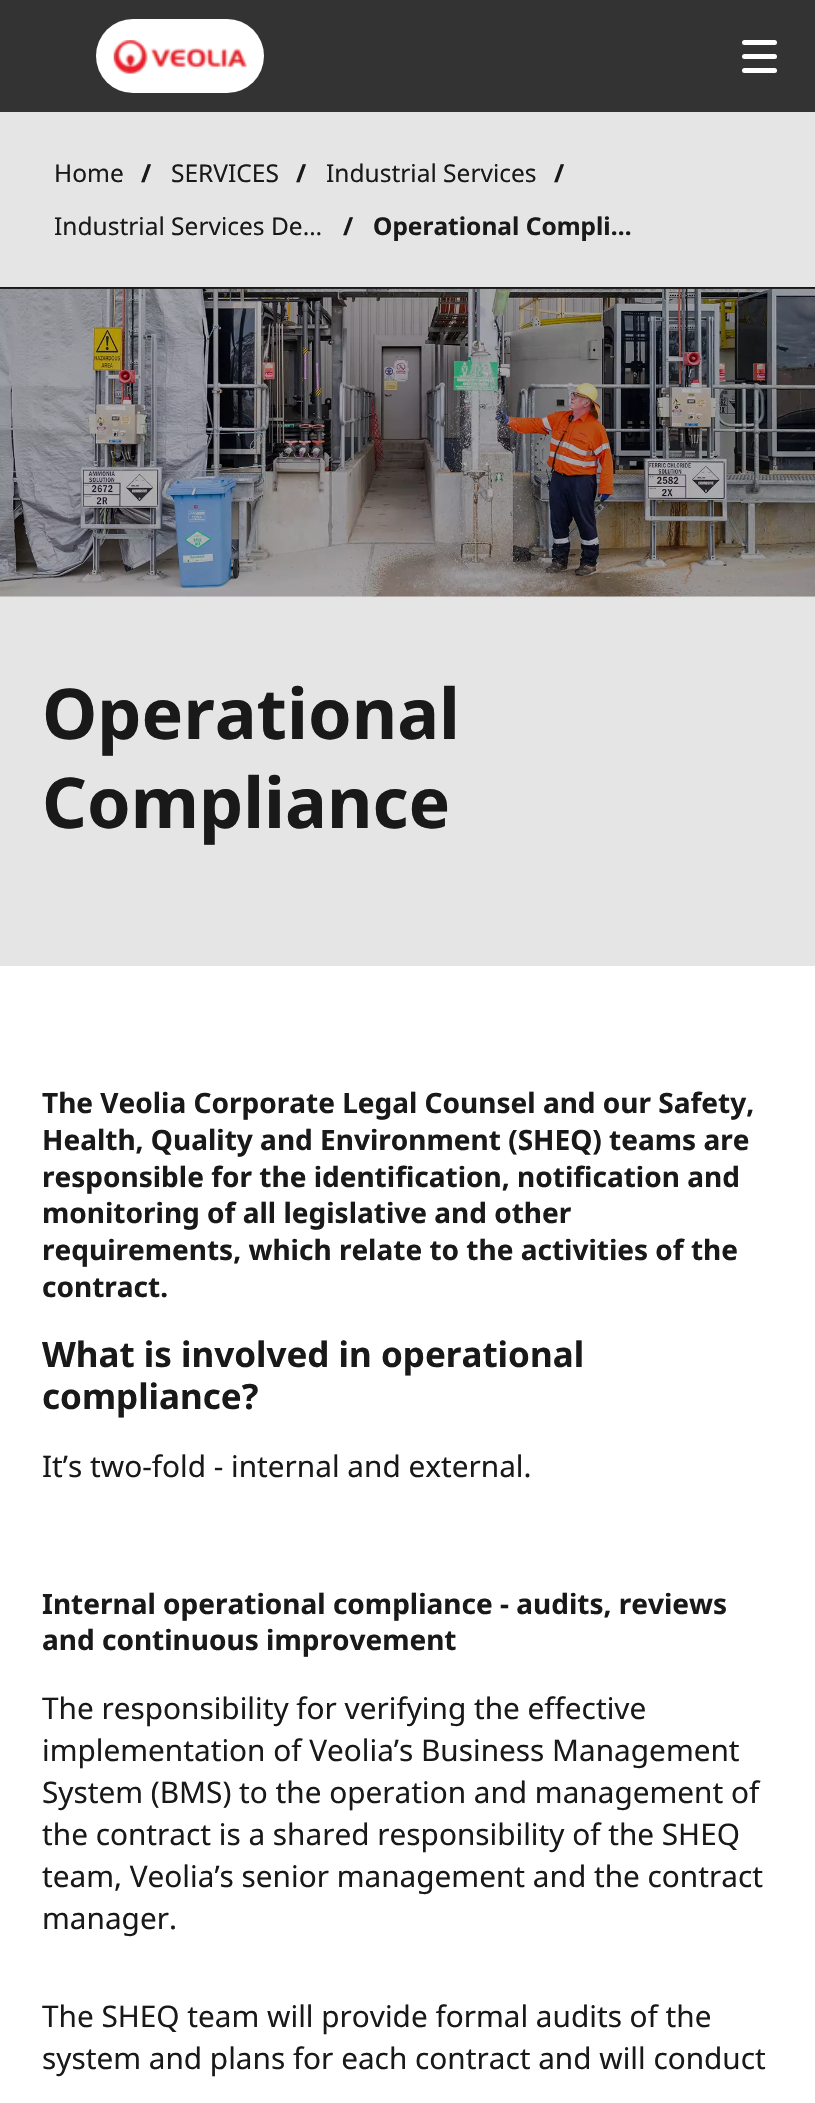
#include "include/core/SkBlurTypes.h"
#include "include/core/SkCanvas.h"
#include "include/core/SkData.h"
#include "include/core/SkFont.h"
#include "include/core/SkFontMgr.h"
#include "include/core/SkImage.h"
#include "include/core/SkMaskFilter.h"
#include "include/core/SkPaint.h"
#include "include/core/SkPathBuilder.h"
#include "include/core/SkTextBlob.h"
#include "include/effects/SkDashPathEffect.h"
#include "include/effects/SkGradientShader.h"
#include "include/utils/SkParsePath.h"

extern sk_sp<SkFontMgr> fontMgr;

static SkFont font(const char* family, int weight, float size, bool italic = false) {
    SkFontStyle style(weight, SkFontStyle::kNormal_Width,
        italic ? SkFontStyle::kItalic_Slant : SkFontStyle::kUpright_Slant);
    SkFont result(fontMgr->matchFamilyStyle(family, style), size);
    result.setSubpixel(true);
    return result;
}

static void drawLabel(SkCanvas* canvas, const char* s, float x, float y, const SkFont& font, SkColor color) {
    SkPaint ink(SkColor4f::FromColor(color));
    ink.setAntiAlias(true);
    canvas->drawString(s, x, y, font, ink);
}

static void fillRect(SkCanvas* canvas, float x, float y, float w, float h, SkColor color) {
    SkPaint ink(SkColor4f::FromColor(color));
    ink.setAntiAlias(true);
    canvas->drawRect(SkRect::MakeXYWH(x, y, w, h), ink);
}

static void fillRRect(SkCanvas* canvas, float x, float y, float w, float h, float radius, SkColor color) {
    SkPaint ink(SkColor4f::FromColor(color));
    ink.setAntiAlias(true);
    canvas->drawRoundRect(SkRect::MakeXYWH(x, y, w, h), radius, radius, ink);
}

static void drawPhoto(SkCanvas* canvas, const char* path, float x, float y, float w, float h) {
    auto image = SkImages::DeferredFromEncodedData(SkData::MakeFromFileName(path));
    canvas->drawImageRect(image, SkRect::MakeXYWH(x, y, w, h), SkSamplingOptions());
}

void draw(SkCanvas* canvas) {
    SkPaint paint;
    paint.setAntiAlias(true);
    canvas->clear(0xFFFFFFFF);
    fillRect(canvas, 0, 0, 815, 112, 0xFF333333);
    fillRRect(canvas, 96, 19, 168, 74, 37, 0xFFFFFFFF);
    drawPhoto(canvas, "assets/img1.png", 113, 40, 134, 34);
    fillRRect(canvas, 742, 68, 35, 5, 2.5f, 0xFFFFFFFF);
    fillRRect(canvas, 742, 40, 35, 5, 2.5f, 0xFFFFFFFF);
    fillRRect(canvas, 742, 54, 35, 5, 2.5f, 0xFFFFFFFF);
    fillRect(canvas, 0, 112, 815, 854, 0xFFE5E5E5);
    SkFont font1 = font("Noto Sans", 400, 24.5f);
    drawLabel(canvas, "Home", 54, 182, font1, 0xFF191919);
    SkFont font2 = font("Noto Sans", 700, 24.5f);
    drawLabel(canvas, "/", 141, 182, font2, 0xFF191919);
    drawLabel(canvas, "SERVICES", 171, 182, font1, 0xFF191919);
    drawLabel(canvas, "/", 296, 182, font2, 0xFF191919);
    drawLabel(canvas, "Industrial Services", 326, 182, font1, 0xFF191919);
    drawLabel(canvas, "/", 554, 182, font2, 0xFF191919);
    drawLabel(canvas, "Industrial Services De…", 54, 235, font1, 0xFF191919);
    drawLabel(canvas, "/", 343, 235, font2, 0xFF191919);
    drawLabel(canvas, "Operational Compli…", 373, 235, font2, 0xFF191919);
    fillRect(canvas, 0, 287, 815, 2, 0xFF191919);
    drawPhoto(canvas, "assets/img2.png", 0, 288, 815, 309);
    SkFont font3 = font("Noto Sans", 700, 70);
    drawLabel(canvas, "Operational", 42, 739, font3, 0xFF191919);
    drawLabel(canvas, "Compliance", 42, 828, font3, 0xFF191919);
    SkFont font4 = font("Noto Sans", 700, 28);
    drawLabel(canvas, "The Veolia Corporate Legal Counsel and our Safety,", 42, 1113, font4, 0xFF191919);
    drawLabel(canvas, "Health, Quality and Environment (SHEQ) teams are", 42, 1150, font4, 0xFF191919);
    drawLabel(canvas, "responsible for the identification, notification and", 42, 1187, font4, 0xFF191919);
    drawLabel(canvas, "monitoring of all legislative and other", 42, 1223, font4, 0xFF191919);
    drawLabel(canvas, "requirements, which relate to the activities of the", 42, 1260, font4, 0xFF191919);
    drawLabel(canvas, "contract.", 42, 1297, font4, 0xFF191919);
    SkFont font5 = font("Noto Sans", 700, 35);
    drawLabel(canvas, "What is involved in operational", 42, 1367, font5, 0xFF191919);
    drawLabel(canvas, "compliance?", 42, 1409, font5, 0xFF191919);
    SkFont font6 = font("Noto Sans", 400, 29.75f);
    drawLabel(canvas, "It’s two-fold - internal and external.", 42, 1477, font6, 0xFF191919);
    drawLabel(canvas, "Internal operational compliance - audits, reviews", 42, 1614, font4, 0xFF191919);
    drawLabel(canvas, "and continuous improvement", 42, 1650, font4, 0xFF191919);
    drawLabel(canvas, "The responsibility for verifying the effective", 42, 1719, font6, 0xFF191919);
    drawLabel(canvas, "implementation of Veolia’s Business Management", 42, 1761, font6, 0xFF191919);
    drawLabel(canvas, "System (BMS) to the operation and management of", 42, 1803, font6, 0xFF191919);
    drawLabel(canvas, "the contract is a shared responsibility of the SHEQ", 42, 1845, font6, 0xFF191919);
    drawLabel(canvas, "team, Veolia’s senior management and the contract", 42, 1887, font6, 0xFF191919);
    drawLabel(canvas, "manager.", 42, 1929, font6, 0xFF191919);
    drawLabel(canvas, "The SHEQ team will provide formal audits of the", 42, 2027, font6, 0xFF191919);
    drawLabel(canvas, "system and plans for each contract and will conduct", 42, 2069, font6, 0xFF191919);
}
